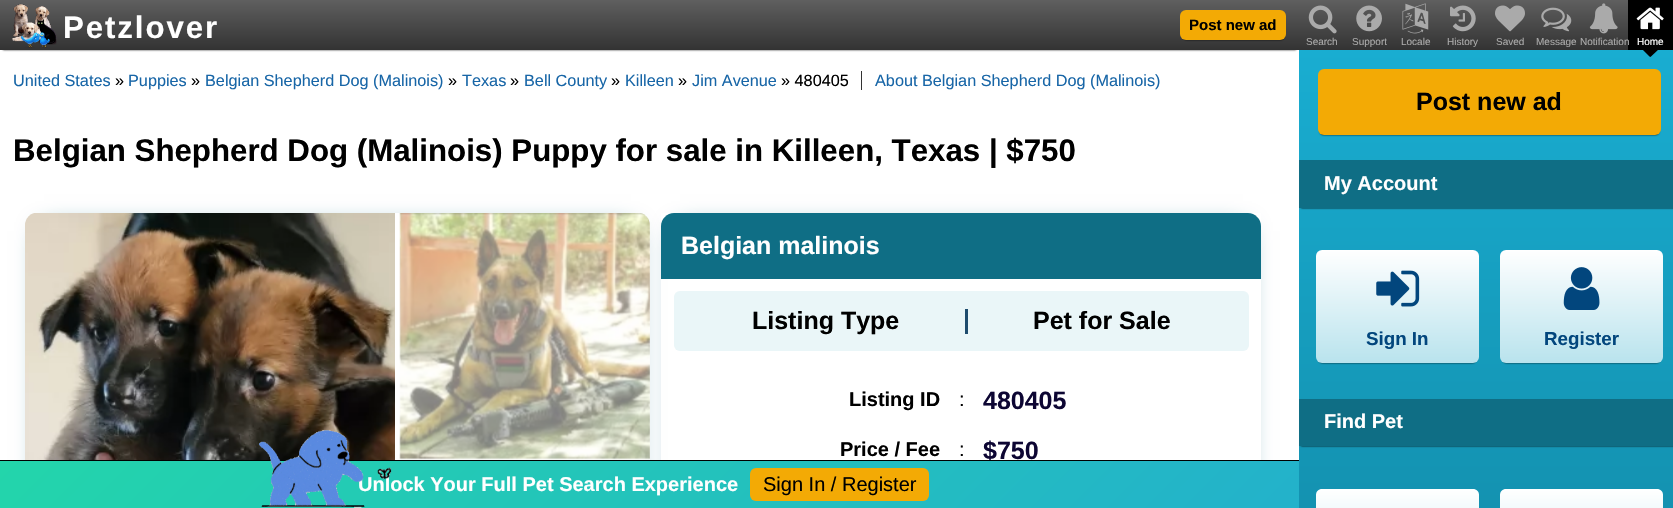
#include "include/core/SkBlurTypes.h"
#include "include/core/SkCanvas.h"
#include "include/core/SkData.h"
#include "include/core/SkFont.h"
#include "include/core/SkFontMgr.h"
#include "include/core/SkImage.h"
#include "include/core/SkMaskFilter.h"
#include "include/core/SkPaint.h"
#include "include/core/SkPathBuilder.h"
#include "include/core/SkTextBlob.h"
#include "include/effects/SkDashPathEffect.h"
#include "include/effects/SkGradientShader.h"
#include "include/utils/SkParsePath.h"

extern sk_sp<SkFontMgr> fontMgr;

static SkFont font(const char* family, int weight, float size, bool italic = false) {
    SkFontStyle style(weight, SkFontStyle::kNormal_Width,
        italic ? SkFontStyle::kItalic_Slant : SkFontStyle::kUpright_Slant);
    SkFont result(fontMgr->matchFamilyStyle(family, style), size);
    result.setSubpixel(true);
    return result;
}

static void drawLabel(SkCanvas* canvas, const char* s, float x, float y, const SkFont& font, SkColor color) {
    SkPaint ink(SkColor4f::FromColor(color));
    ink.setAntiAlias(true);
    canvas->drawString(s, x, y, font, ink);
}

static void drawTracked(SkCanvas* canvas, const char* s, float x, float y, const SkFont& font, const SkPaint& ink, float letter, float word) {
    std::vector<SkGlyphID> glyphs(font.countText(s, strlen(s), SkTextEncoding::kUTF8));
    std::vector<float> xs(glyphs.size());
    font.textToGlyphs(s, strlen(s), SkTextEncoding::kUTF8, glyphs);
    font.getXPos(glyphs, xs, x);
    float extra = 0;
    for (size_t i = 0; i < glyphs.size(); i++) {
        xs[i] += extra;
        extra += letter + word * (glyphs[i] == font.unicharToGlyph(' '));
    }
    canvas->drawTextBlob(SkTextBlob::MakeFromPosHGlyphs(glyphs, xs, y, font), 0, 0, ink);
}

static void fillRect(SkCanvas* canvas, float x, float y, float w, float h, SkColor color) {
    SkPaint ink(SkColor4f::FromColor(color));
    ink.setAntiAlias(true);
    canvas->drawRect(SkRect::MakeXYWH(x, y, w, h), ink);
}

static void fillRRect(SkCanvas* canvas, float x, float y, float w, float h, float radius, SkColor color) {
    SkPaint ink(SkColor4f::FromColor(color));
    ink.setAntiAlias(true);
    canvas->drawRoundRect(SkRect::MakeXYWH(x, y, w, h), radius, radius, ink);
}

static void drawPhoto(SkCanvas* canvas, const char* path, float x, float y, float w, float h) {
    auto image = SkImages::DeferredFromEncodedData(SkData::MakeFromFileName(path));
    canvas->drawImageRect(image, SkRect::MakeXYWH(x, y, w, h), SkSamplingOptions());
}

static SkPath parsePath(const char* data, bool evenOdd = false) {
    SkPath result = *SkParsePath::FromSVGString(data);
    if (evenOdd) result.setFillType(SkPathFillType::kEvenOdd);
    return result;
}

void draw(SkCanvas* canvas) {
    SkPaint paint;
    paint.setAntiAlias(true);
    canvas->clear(0xFFFFFFFF);
    paint.setColor(0xD1000000);
    paint.setMaskFilter(SkMaskFilter::MakeBlur(kNormal_SkBlurStyle, 1));
    canvas->drawRect(SkRect::MakeXYWH(3, 5, 1293, 45), paint);
    paint.setMaskFilter(nullptr);
    {
        const SkColor colors[] = {0xFF5F5F5F, 0xFF333333};
        const float stops[] = {0, 1};
        const SkPoint ends[] = {{649, 0}, {649, 50}};
        paint.setShader(SkGradientShader::MakeLinear(ends, colors, stops, 2, SkTileMode::kClamp));
        paint.setAlpha(255);
    }
    canvas->drawRect(SkRect::MakeXYWH(0, 0, 1299, 50), paint);
    drawPhoto(canvas, "assets/img1.png", 12, 3, 45, 45);
    SkFont font1 = font("Liberation Sans", 700, 31.25f);
    paint.setShader(nullptr);
    paint.setColor(0xFFFFFFFF);
    drawTracked(canvas, "Petzlover", 63, 38, font1, paint, 1.9f, 0);
    paint.setColor(0xFF000000);
    paint.setMaskFilter(SkMaskFilter::MakeBlur(kNormal_SkBlurStyle, 1));
    canvas->drawRoundRect(SkRect::MakeXYWH(1183, 15, 101, 25), 4, 4, paint);
    paint.setMaskFilter(nullptr);
    fillRRect(canvas, 1180, 10, 106, 30, 6, 0xFFF3AA05);
    SkFont font2 = font("Liberation Sans", 700, 15);
    drawLabel(canvas, "Post new ad", 1189, 30, font2, 0xFF000000);
    {
        const SkColor colors[] = {0xFF5F5F5F, 0xFF333333};
        const float stops[] = {0, 1};
        const SkPoint ends[] = {{1486, 0}, {1486, 50}};
        paint.setShader(SkGradientShader::MakeLinear(ends, colors, stops, 2, SkTileMode::kClamp));
        paint.setAlpha(255);
    }
    canvas->drawRect(SkRect::MakeXYWH(1299, 0, 329, 50), paint);
    fillRect(canvas, 1628, 0, 45, 50, 0xFF000000);
    {
        const SkColor colors[] = {0xFF19ADD1, 0xFF138FAD};
        const float stops[] = {0, 1};
        const SkPoint ends[] = {{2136, 50}, {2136, 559}};
        paint.setShader(SkGradientShader::MakeLinear(ends, colors, stops, 2, SkTileMode::kClamp));
        paint.setAlpha(255);
    }
    canvas->drawRect(SkRect::MakeXYWH(1299, 50, 374, 458), paint);
    paint.setShader(nullptr);
    paint.setColor(0xFF000000);
    canvas->drawPath(parsePath("M1651 41L1658.5 48C1659 48.5 1659 49 1658.5 49.5L1651 56.5C1650.5 57 1650 57 1649.5 56.5L1642.5 49.5C1642 49 1642 48.5 1642.5 48L1649.5 41C1650 40.5 1650.5 40.5 1651 41Z"), paint);
    drawPhoto(canvas, "assets/img2.png", 1308, 5, 29, 29);
    SkFont font3 = font("Liberation Sans", 400, 10);
    drawLabel(canvas, "Search", 1306, 45, font3, 0xFFAAAAAA);
    drawPhoto(canvas, "assets/img3.png", 1356, 5, 26, 27);
    drawLabel(canvas, "Support", 1352, 45, font3, 0xFFAAAAAA);
    drawPhoto(canvas, "assets/img4.png", 1402, 3, 27, 31);
    drawLabel(canvas, "Locale", 1401, 45, font3, 0xFFAAAAAA);
    drawPhoto(canvas, "assets/img5.png", 1450, 5, 26, 27);
    drawLabel(canvas, "History", 1447, 45, font3, 0xFFAAAAAA);
    drawPhoto(canvas, "assets/img6.png", 1495, 5, 30, 27);
    drawLabel(canvas, "Saved", 1496, 45, font3, 0xFFAAAAAA);
    drawPhoto(canvas, "assets/img7.png", 1541, 7, 31, 25);
    drawLabel(canvas, "Message", 1536, 45, font3, 0xFFAAAAAA);
    drawPhoto(canvas, "assets/img8.png", 1589, 3, 29, 31);
    drawLabel(canvas, "Notification", 1580, 45, font3, 0xFFAAAAAA);
    drawPhoto(canvas, "assets/img9.png", 1636, 7, 28, 23);
    drawLabel(canvas, "Home", 1637, 45, font3, 0xFFFFFFFF);
    paint.setMaskFilter(SkMaskFilter::MakeBlur(kNormal_SkBlurStyle, 1));
    canvas->drawRoundRect(SkRect::MakeXYWH(1320, 74, 339, 61), 4, 4, paint);
    paint.setMaskFilter(nullptr);
    fillRRect(canvas, 1318, 69, 343, 66, 6, 0xFFF3AA05);
    SkFont font4 = font("Liberation Sans", 700, 25);
    drawLabel(canvas, "Post new ad", 1416, 110, font4, 0xFF000000);
    paint.setMaskFilter(SkMaskFilter::MakeBlur(kNormal_SkBlurStyle, 1));
    canvas->drawRect(SkRect::MakeXYWH(1301, 165, 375, 43), paint);
    paint.setMaskFilter(nullptr);
    fillRect(canvas, 1299, 160, 374, 48, 0xFF0F6E85);
    SkFont font5 = font("Liberation Sans", 700, 20);
    drawLabel(canvas, "My Account", 1324, 190, font5, 0xFFFFFFFF);
    paint.setMaskFilter(SkMaskFilter::MakeBlur(kNormal_SkBlurStyle, 1));
    canvas->drawRoundRect(SkRect::MakeXYWH(1319, 255, 157, 108), 4, 4, paint);
    paint.setMaskFilter(nullptr);
    {
        const SkColor colors[] = {0xFFFFFFFF, 0xFFB9E3ED};
        const float stops[] = {0, 1};
        const SkPoint ends[] = {{1398, 250}, {1398, 363}};
        paint.setShader(SkGradientShader::MakeLinear(ends, colors, stops, 2, SkTileMode::kClamp));
        paint.setAlpha(255);
    }
    canvas->drawRoundRect(SkRect::MakeXYWH(1316, 250, 163, 113), 6, 6, paint);
    drawPhoto(canvas, "assets/img10.png", 1376, 270, 44, 37);
    SkFont font6 = font("Liberation Sans", 700, 18.75f);
    drawLabel(canvas, "Sign In", 1366, 345, font6, 0xFF02467D);
    paint.setShader(nullptr);
    paint.setColor(0xFF000000);
    paint.setMaskFilter(SkMaskFilter::MakeBlur(kNormal_SkBlurStyle, 1));
    canvas->drawRoundRect(SkRect::MakeXYWH(1503, 255, 157, 108), 4, 4, paint);
    paint.setMaskFilter(nullptr);
    {
        const SkColor colors[] = {0xFFFFFFFF, 0xFFB9E3ED};
        const float stops[] = {0, 1};
        const SkPoint ends[] = {{1581, 250}, {1581, 363}};
        paint.setShader(SkGradientShader::MakeLinear(ends, colors, stops, 2, SkTileMode::kClamp));
        paint.setAlpha(255);
    }
    canvas->drawRoundRect(SkRect::MakeXYWH(1500, 250, 163, 113), 6, 6, paint);
    drawPhoto(canvas, "assets/img11.png", 1563, 267, 37, 43);
    drawLabel(canvas, "Register", 1544, 345, font6, 0xFF02467D);
    paint.setShader(nullptr);
    paint.setColor(0xFF000000);
    paint.setMaskFilter(SkMaskFilter::MakeBlur(kNormal_SkBlurStyle, 1));
    canvas->drawRect(SkRect::MakeXYWH(1301, 404, 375, 42), paint);
    paint.setMaskFilter(nullptr);
    fillRect(canvas, 1299, 399, 374, 47, 0xFF0F6E85);
    drawLabel(canvas, "Find Pet", 1324, 428, font5, 0xFFFFFFFF);
    {
        const SkColor colors[] = {0xFFFFFFFF, 0xFFB9E3ED};
        const float stops[] = {0, 1};
        const SkPoint ends[] = {{1398, 489}, {1398, 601}};
        paint.setShader(SkGradientShader::MakeLinear(ends, colors, stops, 2, SkTileMode::kClamp));
        paint.setAlpha(255);
    }
    canvas->drawPath(parsePath("M1322 489H1473C1476.5 489 1479 491.5 1479 495V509H1316V495C1316 491.5 1318.5 489 1322 489Z"), paint);
    {
        const SkColor colors[] = {0xFFFFFFFF, 0xFFB9E3ED};
        const float stops[] = {0, 1};
        const SkPoint ends[] = {{1581, 489}, {1581, 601}};
        paint.setShader(SkGradientShader::MakeLinear(ends, colors, stops, 2, SkTileMode::kClamp));
        paint.setAlpha(255);
    }
    canvas->drawPath(parsePath("M1506 489H1657C1660.5 489 1663 491.5 1663 495V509H1500V495C1500 491.5 1502.5 489 1506 489Z"), paint);
    SkFont font7 = font("Liberation Sans", 400, 16.25f);
    drawLabel(canvas, "United States", 13, 86, font7, 0xFF1866A7);
    drawLabel(canvas, "»", 115, 86, font7, 0xFF000000);
    drawLabel(canvas, "Puppies", 128, 86, font7, 0xFF1866A7);
    drawLabel(canvas, "»", 191, 86, font7, 0xFF000000);
    drawLabel(canvas, "Belgian Shepherd Dog (Malinois)", 205, 86, font7, 0xFF1866A7);
    drawLabel(canvas, "»", 448, 86, font7, 0xFF000000);
    drawLabel(canvas, "Texas", 462, 86, font7, 0xFF1866A7);
    drawLabel(canvas, "»", 510, 86, font7, 0xFF000000);
    drawLabel(canvas, "Bell County", 524, 86, font7, 0xFF1866A7);
    drawLabel(canvas, "»", 611, 86, font7, 0xFF000000);
    drawLabel(canvas, "Killeen", 625, 86, font7, 0xFF1866A7);
    drawLabel(canvas, "»", 678, 86, font7, 0xFF000000);
    drawLabel(canvas, "Jim Avenue", 692, 86, font7, 0xFF1866A7);
    drawLabel(canvas, "» 480405", 781, 86, font7, 0xFF000000);
    drawLabel(canvas, "About Belgian Shepherd Dog (Malinois)", 875, 86, font7, 0xFF1866A7);
    fillRect(canvas, 861, 71, 1, 19, 0xFF333333);
    drawLabel(canvas, "Belgian Shepherd Dog (Malinois) Puppy for sale in Killeen, Texas | $750", 13, 161, font1, 0xFF000000);
    canvas->save();
    canvas->clipPath(parsePath("M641 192H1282V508H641ZM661 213H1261V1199H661Z", true), true);
    paint.setShader(nullptr);
    paint.setColor(0xFF0F6E85);
    paint.setMaskFilter(SkMaskFilter::MakeBlur(kNormal_SkBlurStyle, 12.5f));
    canvas->drawRect(SkRect::MakeXYWH(680, 231, 563, 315), paint);
    paint.setMaskFilter(nullptr);
    canvas->restore();
    canvas->drawPath(parsePath("M674 213H1248C1255 213 1261 219 1261 226V279H661V226C661 219 667 213 674 213Z"), paint);
    canvas->save();
    canvas->clipPath(parsePath("M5 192H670V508H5ZM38 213H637C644 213 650 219 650 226V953C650 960 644 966 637 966H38C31 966 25 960 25 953V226C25 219 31 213 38 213Z", true), true);
    paint.setMaskFilter(SkMaskFilter::MakeBlur(kNormal_SkBlurStyle, 12.5f));
    canvas->drawRect(SkRect::MakeXYWH(44, 231, 587, 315), paint);
    paint.setMaskFilter(nullptr);
    canvas->restore();
    drawPhoto(canvas, "assets/img12.png", 25, 213, 370, 247);
    drawPhoto(canvas, "assets/img13.png", 399, 213, 251, 247);
    drawLabel(canvas, "Belgian malinois", 681, 254, font4, 0xFFFFFFFF);
    fillRRect(canvas, 674, 291, 575, 60, 6, 0xFFEAF6F8);
    drawLabel(canvas, "Listing Type", 752, 329, font4, 0xFF000000);
    fillRect(canvas, 965, 309, 3, 25, 0xFF1E4C6E);
    drawLabel(canvas, "Pet for Sale", 1033, 329, font4, 0xFF000000);
    drawLabel(canvas, "Listing ID", 849, 406, font5, 0xFF000000);
    SkFont font8 = font("Liberation Sans", 400, 20);
    drawLabel(canvas, ":", 959, 406, font8, 0xFF000000);
    drawLabel(canvas, "480405", 983, 409, font4, 0xFF0D0633);
    drawLabel(canvas, "Price / Fee", 840, 456, font5, 0xFF000000);
    drawLabel(canvas, ":", 959, 456, font8, 0xFF000000);
    drawLabel(canvas, "$750", 983, 459, font4, 0xFF0D0633);
    {
        const SkColor colors[] = {0xFFEE7752, 0xFFE73C7E, 0xFF23A6D5, 0xFF23D5AB};
        const float stops[] = {0, 0.33f, 0.67f, 1};
        const SkPoint ends[] = {{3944, 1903}, {1251, -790}};
        paint.setShader(SkGradientShader::MakeLinear(ends, colors, stops, 4, SkTileMode::kClamp));
        paint.setAlpha(255);
    }
    canvas->drawRect(SkRect::MakeXYWH(0, 461, 1299, 47), paint);
    fillRect(canvas, 0, 460, 1299, 1, 0xFF000000);
    drawLabel(canvas, "Unlock Your Full Pet Search Experience", 358, 491, font5, 0xFFFFFFFF);
    drawPhoto(canvas, "assets/img14.png", 259, 430, 133, 78);
    fillRRect(canvas, 750, 468, 179, 33, 6, 0xFFF3AA05);
    drawLabel(canvas, "Sign In / Register", 763, 491, font8, 0xFF000000);
}
